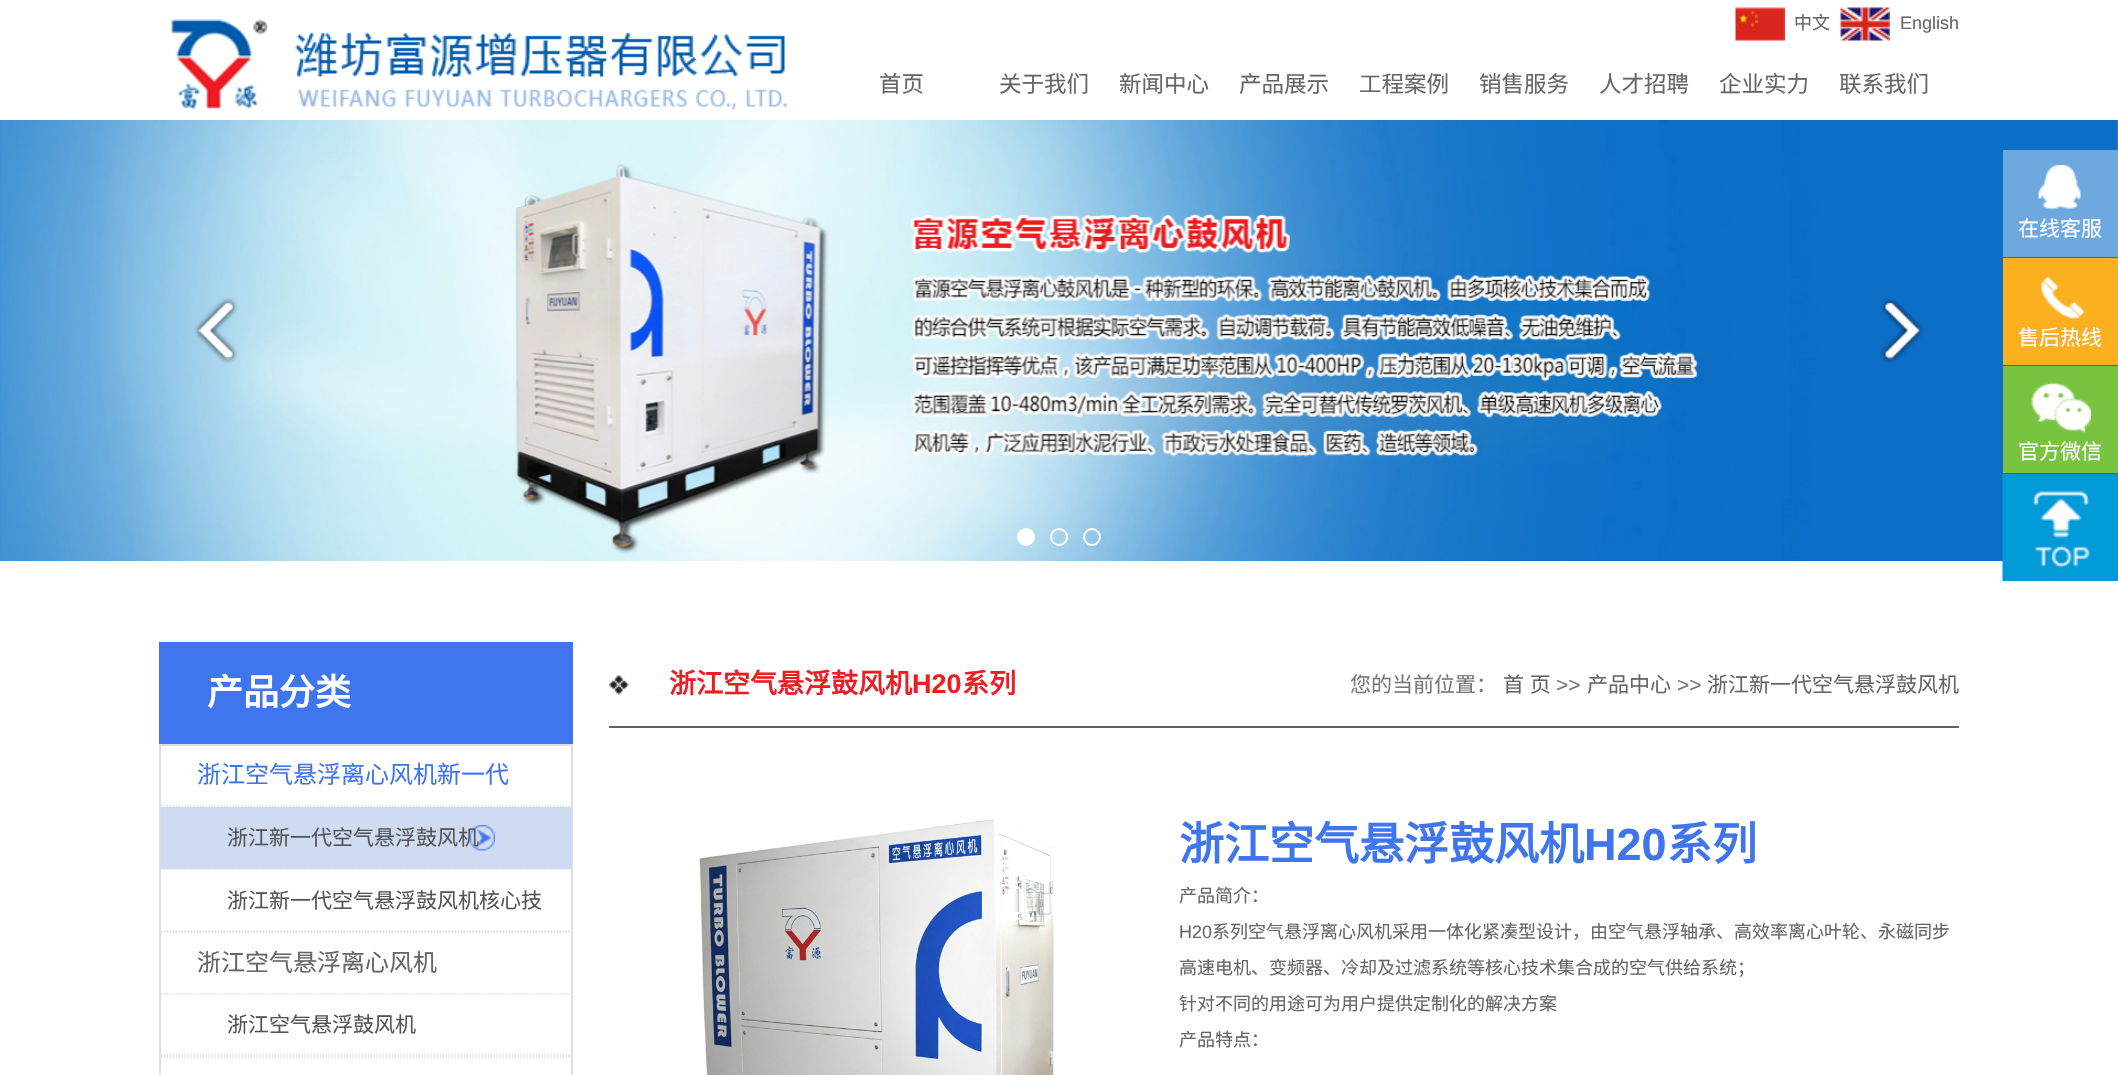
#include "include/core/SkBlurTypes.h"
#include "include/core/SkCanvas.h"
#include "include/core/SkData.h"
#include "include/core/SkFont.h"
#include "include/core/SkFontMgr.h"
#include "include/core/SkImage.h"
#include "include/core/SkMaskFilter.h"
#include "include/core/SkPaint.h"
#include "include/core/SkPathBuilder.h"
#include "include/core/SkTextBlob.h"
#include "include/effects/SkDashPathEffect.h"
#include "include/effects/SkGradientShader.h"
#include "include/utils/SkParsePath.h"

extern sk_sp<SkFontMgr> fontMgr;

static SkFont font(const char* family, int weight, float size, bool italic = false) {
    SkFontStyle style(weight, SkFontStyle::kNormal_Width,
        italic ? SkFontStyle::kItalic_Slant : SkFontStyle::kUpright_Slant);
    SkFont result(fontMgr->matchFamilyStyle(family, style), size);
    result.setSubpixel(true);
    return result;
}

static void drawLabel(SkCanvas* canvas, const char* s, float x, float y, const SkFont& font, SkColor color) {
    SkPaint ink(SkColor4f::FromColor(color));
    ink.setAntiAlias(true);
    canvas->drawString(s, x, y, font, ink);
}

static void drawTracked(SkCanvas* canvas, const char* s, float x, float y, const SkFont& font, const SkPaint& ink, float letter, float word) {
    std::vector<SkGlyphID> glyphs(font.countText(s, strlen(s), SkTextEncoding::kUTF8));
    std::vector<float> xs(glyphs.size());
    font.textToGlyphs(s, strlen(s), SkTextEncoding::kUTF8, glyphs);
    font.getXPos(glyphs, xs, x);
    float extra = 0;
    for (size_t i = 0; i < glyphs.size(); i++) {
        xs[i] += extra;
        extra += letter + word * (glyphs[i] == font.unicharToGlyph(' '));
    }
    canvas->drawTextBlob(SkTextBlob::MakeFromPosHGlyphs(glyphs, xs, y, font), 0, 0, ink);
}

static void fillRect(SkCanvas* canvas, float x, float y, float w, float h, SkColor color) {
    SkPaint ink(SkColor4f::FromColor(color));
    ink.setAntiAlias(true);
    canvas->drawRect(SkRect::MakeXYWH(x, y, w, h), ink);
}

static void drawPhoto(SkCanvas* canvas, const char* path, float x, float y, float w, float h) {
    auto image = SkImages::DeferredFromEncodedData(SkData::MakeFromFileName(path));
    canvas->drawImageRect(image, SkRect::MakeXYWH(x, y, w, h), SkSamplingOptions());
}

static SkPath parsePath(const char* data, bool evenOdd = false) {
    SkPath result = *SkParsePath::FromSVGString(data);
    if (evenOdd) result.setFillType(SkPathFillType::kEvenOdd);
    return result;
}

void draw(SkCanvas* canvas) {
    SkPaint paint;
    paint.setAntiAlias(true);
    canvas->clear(0xFFFFFFFF);
    drawPhoto(canvas, "assets/img1.png", 170, 19, 618, 91);
    drawPhoto(canvas, "assets/img2.png", 1735, 7, 50, 34);
    SkFont font1 = font("Noto Sans CJK SC", 400, 18);
    drawLabel(canvas, "中文", 1794, 29, font1, 0xFF666666);
    drawPhoto(canvas, "assets/img3.png", 1840, 7, 50, 34);
    SkFont font2 = font("Liberation Sans", 400, 18);
    drawLabel(canvas, "English", 1900, 29, font2, 0xFF666666);
    SkFont font3 = font("Noto Sans CJK SC", 400, 22.5f);
    drawLabel(canvas, "首页", 879, 92, font3, 0xFF666666);
    drawLabel(canvas, "关于我们", 999, 92, font3, 0xFF666666);
    drawLabel(canvas, "新闻中心", 1119, 92, font3, 0xFF666666);
    drawLabel(canvas, "产品展示", 1239, 92, font3, 0xFF666666);
    drawLabel(canvas, "工程案例", 1359, 92, font3, 0xFF666666);
    drawLabel(canvas, "销售服务", 1479, 92, font3, 0xFF666666);
    drawLabel(canvas, "人才招聘", 1599, 92, font3, 0xFF666666);
    drawLabel(canvas, "企业实力", 1719, 92, font3, 0xFF666666);
    drawLabel(canvas, "联系我们", 1839, 92, font3, 0xFF666666);
    drawPhoto(canvas, "assets/img4.png", 0, 120, 2118, 441);
    drawPhoto(canvas, "assets/img5.png", 194, 298, 44, 65);
    drawPhoto(canvas, "assets/img6.png", 1880, 298, 44, 65);
    paint.setColor(0xFFFFFFFF);
    canvas->drawCircle(1026, 537, 8, paint);
    paint.setStroke(true);
    paint.setStrokeWidth(2);
    canvas->drawCircle(1026, 537, 8, paint);
    canvas->drawCircle(1059, 537, 8, paint);
    canvas->drawCircle(1092, 537, 8, paint);
    fillRect(canvas, 2003, 150, 115, 107, 0xFF6DA9DE);
    drawPhoto(canvas, "assets/img7.png", 2038, 165, 43, 44);
    SkFont font4 = font("Noto Sans CJK SC", 400, 21);
    drawLabel(canvas, "在线客服", 2018, 236, font4, 0xFFFFFFFF);
    fillRect(canvas, 2003, 258, 115, 107, 0xFFFBB01F);
    drawPhoto(canvas, "assets/img8.png", 2041, 277, 43, 42);
    drawLabel(canvas, "售后热线", 2018, 345, font4, 0xFFFFFFFF);
    fillRect(canvas, 2003, 366, 115, 107, 0xFF78C340);
    drawPhoto(canvas, "assets/img9.png", 2031, 382, 60, 51);
    drawLabel(canvas, "官方微信", 2018, 459, font4, 0xFFFFFFFF);
    fillRect(canvas, 2003, 474, 115, 107, 0xFF009AD9);
    drawPhoto(canvas, "assets/img10.png", 2002, 474, 89, 107);
    fillRect(canvas, 159, 642, 414, 102, 0xFF3F76ED);
    SkFont font5 = font("Noto Sans CJK SC", 700, 36);
    drawLabel(canvas, "产品分类", 207, 705, font5, 0xFFFFFFFF);
    paint.setColor(0xFFDDDEDF);
    canvas->drawRect(SkRect::MakeXYWH(160, 745, 412, 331), paint);
    paint.setStrokeWidth(1.5f);
    paint.setPathEffect(SkDashPathEffect::Make({{1.5f, 1.5f}}, 0));
    canvas->drawPath(parsePath("M160.5 806H571.5"), paint);
    paint.setPathEffect(nullptr);
    SkFont font6 = font("Noto Sans CJK SC", 400, 24);
    drawLabel(canvas, "浙江空气悬浮离心风机新一代", 197, 783, font6, 0xFF3F76ED);
    paint.setPathEffect(SkDashPathEffect::Make({{1.5f, 1.5f}}, 0));
    canvas->drawPath(parsePath("M160.5 869H571.5"), paint);
    paint.setPathEffect(nullptr);
    fillRect(canvas, 161, 807, 411, 62, 0xFFCFDAF3);
    drawPhoto(canvas, "assets/img11.png", 469, 825, 26, 26);
    paint.setPathEffect(SkDashPathEffect::Make({{1.5f, 1.5f}}, 0));
    canvas->drawPath(parsePath("M160.5 868H571.5"), paint);
    paint.setPathEffect(nullptr);
    drawLabel(canvas, "浙江新一代空气悬浮鼓风机", 227, 845, font4, 0xFF555555);
    paint.setPathEffect(SkDashPathEffect::Make({{1.5f, 1.5f}}, 0));
    canvas->drawPath(parsePath("M160.5 932H571.5"), paint);
    paint.setPathEffect(nullptr);
    paint.setPathEffect(SkDashPathEffect::Make({{1.5f, 1.5f}}, 0));
    canvas->drawPath(parsePath("M160.5 931H571.5"), paint);
    paint.setPathEffect(nullptr);
    drawLabel(canvas, "浙江新一代空气悬浮鼓风机核心技", 227, 908, font4, 0xFF555555);
    paint.setPathEffect(SkDashPathEffect::Make({{1.5f, 1.5f}}, 0));
    canvas->drawPath(parsePath("M160.5 994H571.5"), paint);
    paint.setPathEffect(nullptr);
    drawLabel(canvas, "浙江空气悬浮离心风机", 197, 971, font6, 0xFF666666);
    paint.setPathEffect(SkDashPathEffect::Make({{1.5f, 1.5f}}, 0));
    canvas->drawPath(parsePath("M160.5 1057H571.5"), paint);
    paint.setPathEffect(nullptr);
    paint.setPathEffect(SkDashPathEffect::Make({{1.5f, 1.5f}}, 0));
    canvas->drawPath(parsePath("M160.5 1055H571.5"), paint);
    paint.setPathEffect(nullptr);
    drawLabel(canvas, "浙江空气悬浮鼓风机", 227, 1032, font4, 0xFF555555);
    fillRect(canvas, 609, 726, 1350, 2, 0xFF626262);
    drawPhoto(canvas, "assets/img12.png", 609, 675, 20, 20);
    SkFont font7 = font("Noto Sans CJK SC", 700, 27);
    drawLabel(canvas, "浙江空气悬浮鼓风机", 669, 693, font7, 0xFFEE1D24);
    SkFont font8 = font("Liberation Sans", 700, 27);
    drawLabel(canvas, "H20", 912, 693, font8, 0xFFEE1D24);
    drawLabel(canvas, "系列", 962, 693, font7, 0xFFEE1D24);
    drawLabel(canvas, "您的当前位置：", 1350, 692, font4, 0xFF777777);
    paint.setStroke(false);
    paint.setColor(0xFF666666);
    drawTracked(canvas, "首 页", 1503, 692, font4, paint, 0, 1);
    SkFont font9 = font("Liberation Sans", 400, 21);
    drawLabel(canvas, ">>", 1556, 692, font9, 0xFF777777);
    drawLabel(canvas, "产品中心", 1587, 692, font4, 0xFF666666);
    drawLabel(canvas, ">>", 1677, 692, font9, 0xFF777777);
    drawLabel(canvas, "浙江新一代空气悬浮鼓风机", 1707, 692, font4, 0xFF666666);
    drawPhoto(canvas, "assets/img13.png", 699, 819, 355, 256);
    SkFont font10 = font("Noto Sans CJK SC", 700, 45);
    drawLabel(canvas, "浙江空气悬浮鼓风机", 1179, 860, font10, 0xFF3F76ED);
    SkFont font11 = font("Liberation Sans", 700, 45);
    drawLabel(canvas, "H20", 1584, 860, font11, 0xFF3F76ED);
    drawLabel(canvas, "系列", 1667, 860, font10, 0xFF3F76ED);
    drawLabel(canvas, "产品简介：", 1179, 902, font1, 0xFF666666);
    drawLabel(canvas, "H20", 1179, 938, font2, 0xFF666666);
    drawLabel(canvas, "系列空气悬浮离心风机采用一体化紧凑型设计，由空气悬浮轴承、高效率离心叶轮、永磁同步", 1212, 938, font1, 0xFF666666);
    drawLabel(canvas, "高速电机、变频器、冷却及过滤系统等核心技术集合成的空气供给系统；", 1179, 974, font1, 0xFF666666);
    drawLabel(canvas, "针对不同的用途可为用户提供定制化的解决方案", 1179, 1010, font1, 0xFF666666);
    drawLabel(canvas, "产品特点：", 1179, 1046, font1, 0xFF666666);
}
